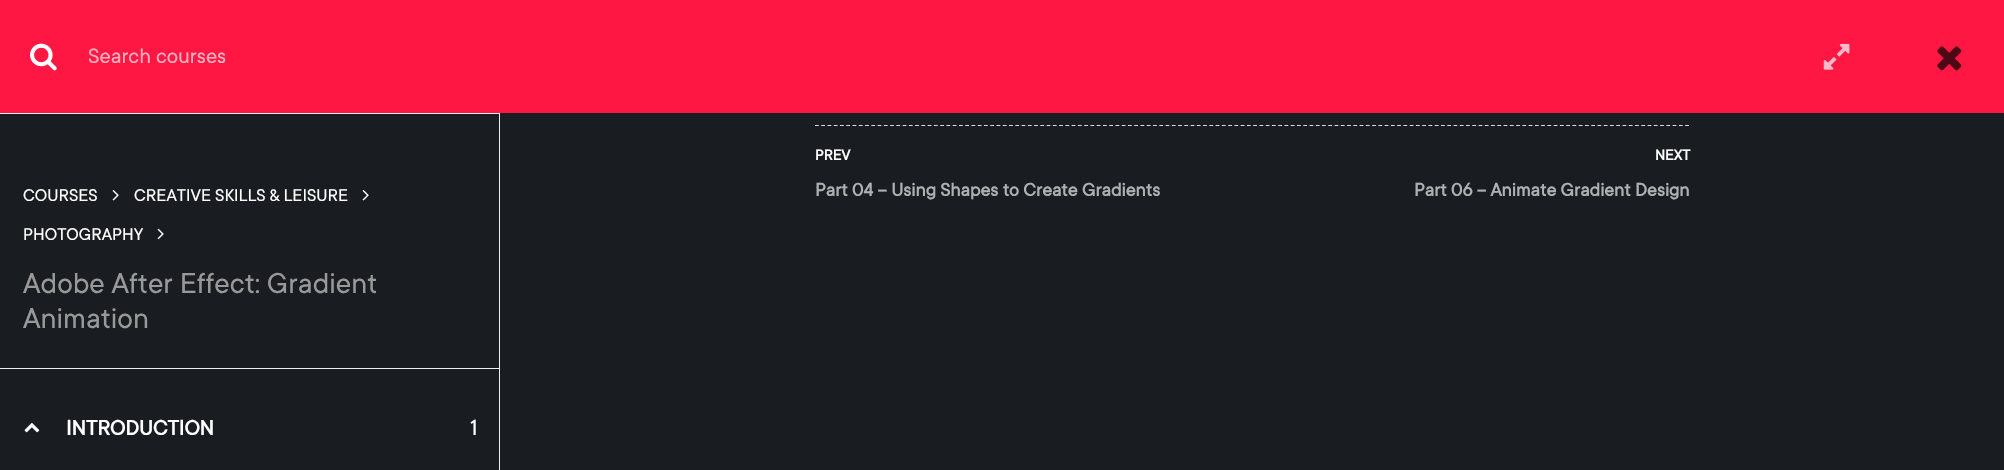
#include "include/core/SkBlurTypes.h"
#include "include/core/SkCanvas.h"
#include "include/core/SkData.h"
#include "include/core/SkFont.h"
#include "include/core/SkFontMgr.h"
#include "include/core/SkImage.h"
#include "include/core/SkMaskFilter.h"
#include "include/core/SkPaint.h"
#include "include/core/SkPathBuilder.h"
#include "include/core/SkTextBlob.h"
#include "include/effects/SkDashPathEffect.h"
#include "include/effects/SkGradientShader.h"
#include "include/utils/SkParsePath.h"

extern sk_sp<SkFontMgr> fontMgr;

static SkFont font(const char* family, int weight, float size, bool italic = false) {
    SkFontStyle style(weight, SkFontStyle::kNormal_Width,
        italic ? SkFontStyle::kItalic_Slant : SkFontStyle::kUpright_Slant);
    SkFont result(fontMgr->matchFamilyStyle(family, style), size);
    result.setSubpixel(true);
    return result;
}

static void drawLabel(SkCanvas* canvas, const char* s, float x, float y, const SkFont& font, SkColor color) {
    SkPaint ink(SkColor4f::FromColor(color));
    ink.setAntiAlias(true);
    canvas->drawString(s, x, y, font, ink);
}

static void fillRect(SkCanvas* canvas, float x, float y, float w, float h, SkColor color) {
    SkPaint ink(SkColor4f::FromColor(color));
    ink.setAntiAlias(true);
    canvas->drawRect(SkRect::MakeXYWH(x, y, w, h), ink);
}

static void drawPhoto(SkCanvas* canvas, const char* path, float x, float y, float w, float h) {
    auto image = SkImages::DeferredFromEncodedData(SkData::MakeFromFileName(path));
    canvas->drawImageRect(image, SkRect::MakeXYWH(x, y, w, h), SkSamplingOptions());
}

static SkPath parsePath(const char* data, bool evenOdd = false) {
    SkPath result = *SkParsePath::FromSVGString(data);
    if (evenOdd) result.setFillType(SkPathFillType::kEvenOdd);
    return result;
}

void draw(SkCanvas* canvas) {
    SkPaint paint;
    paint.setAntiAlias(true);
    canvas->clear(0xFF191C21);
    fillRect(canvas, 0, 0, 2004, 113, 0xFFFF1744);
    drawPhoto(canvas, "assets/img1.png", 30, 43, 27, 28);
    SkFont font1 = font("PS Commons", 400, 20);
    drawLabel(canvas, "Search courses", 88, 63, font1, 0xFFFFAEBE);
    drawPhoto(canvas, "assets/img2.png", 1823, 43, 27, 27);
    drawPhoto(canvas, "assets/img3.png", 1937, 46, 25, 25);
    paint.setStroke(true);
    paint.setStrokeWidth(1.2f);
    paint.setColor(0xFFDDDDDD);
    paint.setPathEffect(SkDashPathEffect::Make({{3.75f, 2.51f}}, 0));
    canvas->drawPath(parsePath("M815 125.5H1690"), paint);
    paint.setPathEffect(nullptr);
    SkFont font2 = font("PS Commons", 700, 14);
    drawLabel(canvas, "PREV", 815, 160, font2, 0xFFFFFFFF);
    SkFont font3 = font("PS Commons", 700, 17.5f);
    drawLabel(canvas, "Part 04 – Using Shapes to Create Gradients", 815, 196, font3, 0xFFAFB0B1);
    drawLabel(canvas, "NEXT", 1655, 160, font2, 0xFFFFFFFF);
    drawLabel(canvas, "Part 06 – Animate Gradient Design", 1414, 196, font3, 0xFFAFB0B1);
    fillRect(canvas, 0, 113, 500, 1, 0xFFEEEEEE);
    SkFont font4 = font("PS Commons", 400, 16.25f);
    drawLabel(canvas, "COURSES", 23, 201, font4, 0xFFFFFFFF);
    drawPhoto(canvas, "assets/img4.png", 112, 190, 7, 11);
    drawLabel(canvas, "CREATIVE SKILLS & LEISURE", 134, 201, font4, 0xFFFFFFFF);
    drawPhoto(canvas, "assets/img4.png", 362, 190, 7, 11);
    drawLabel(canvas, "PHOTOGRAPHY", 23, 240, font4, 0xFFFFFFFF);
    drawPhoto(canvas, "assets/img5.png", 157, 228, 7, 12);
    SkFont font5 = font("PS Commons", 400, 27.5f);
    drawLabel(canvas, "Adobe After Effect: Gradient", 23, 293, font5, 0xFF999999);
    drawLabel(canvas, "Animation", 23, 328, font5, 0xFF999999);
    fillRect(canvas, 0, 368, 500, 1, 0xFFEEEEEE);
    drawPhoto(canvas, "assets/img6.png", 24, 423, 16, 10);
    SkFont font6 = font("PS Commons", 700, 20);
    drawLabel(canvas, "INTRODUCTION", 66, 435, font6, 0xFFFFFFFF);
    SkFont font7 = font("PS Commons", 400, 21);
    drawLabel(canvas, "1", 470, 435, font7, 0xFFFFFFFF);
    fillRect(canvas, 499, 114, 1, 356, 0xFFEEEEEE);
}
